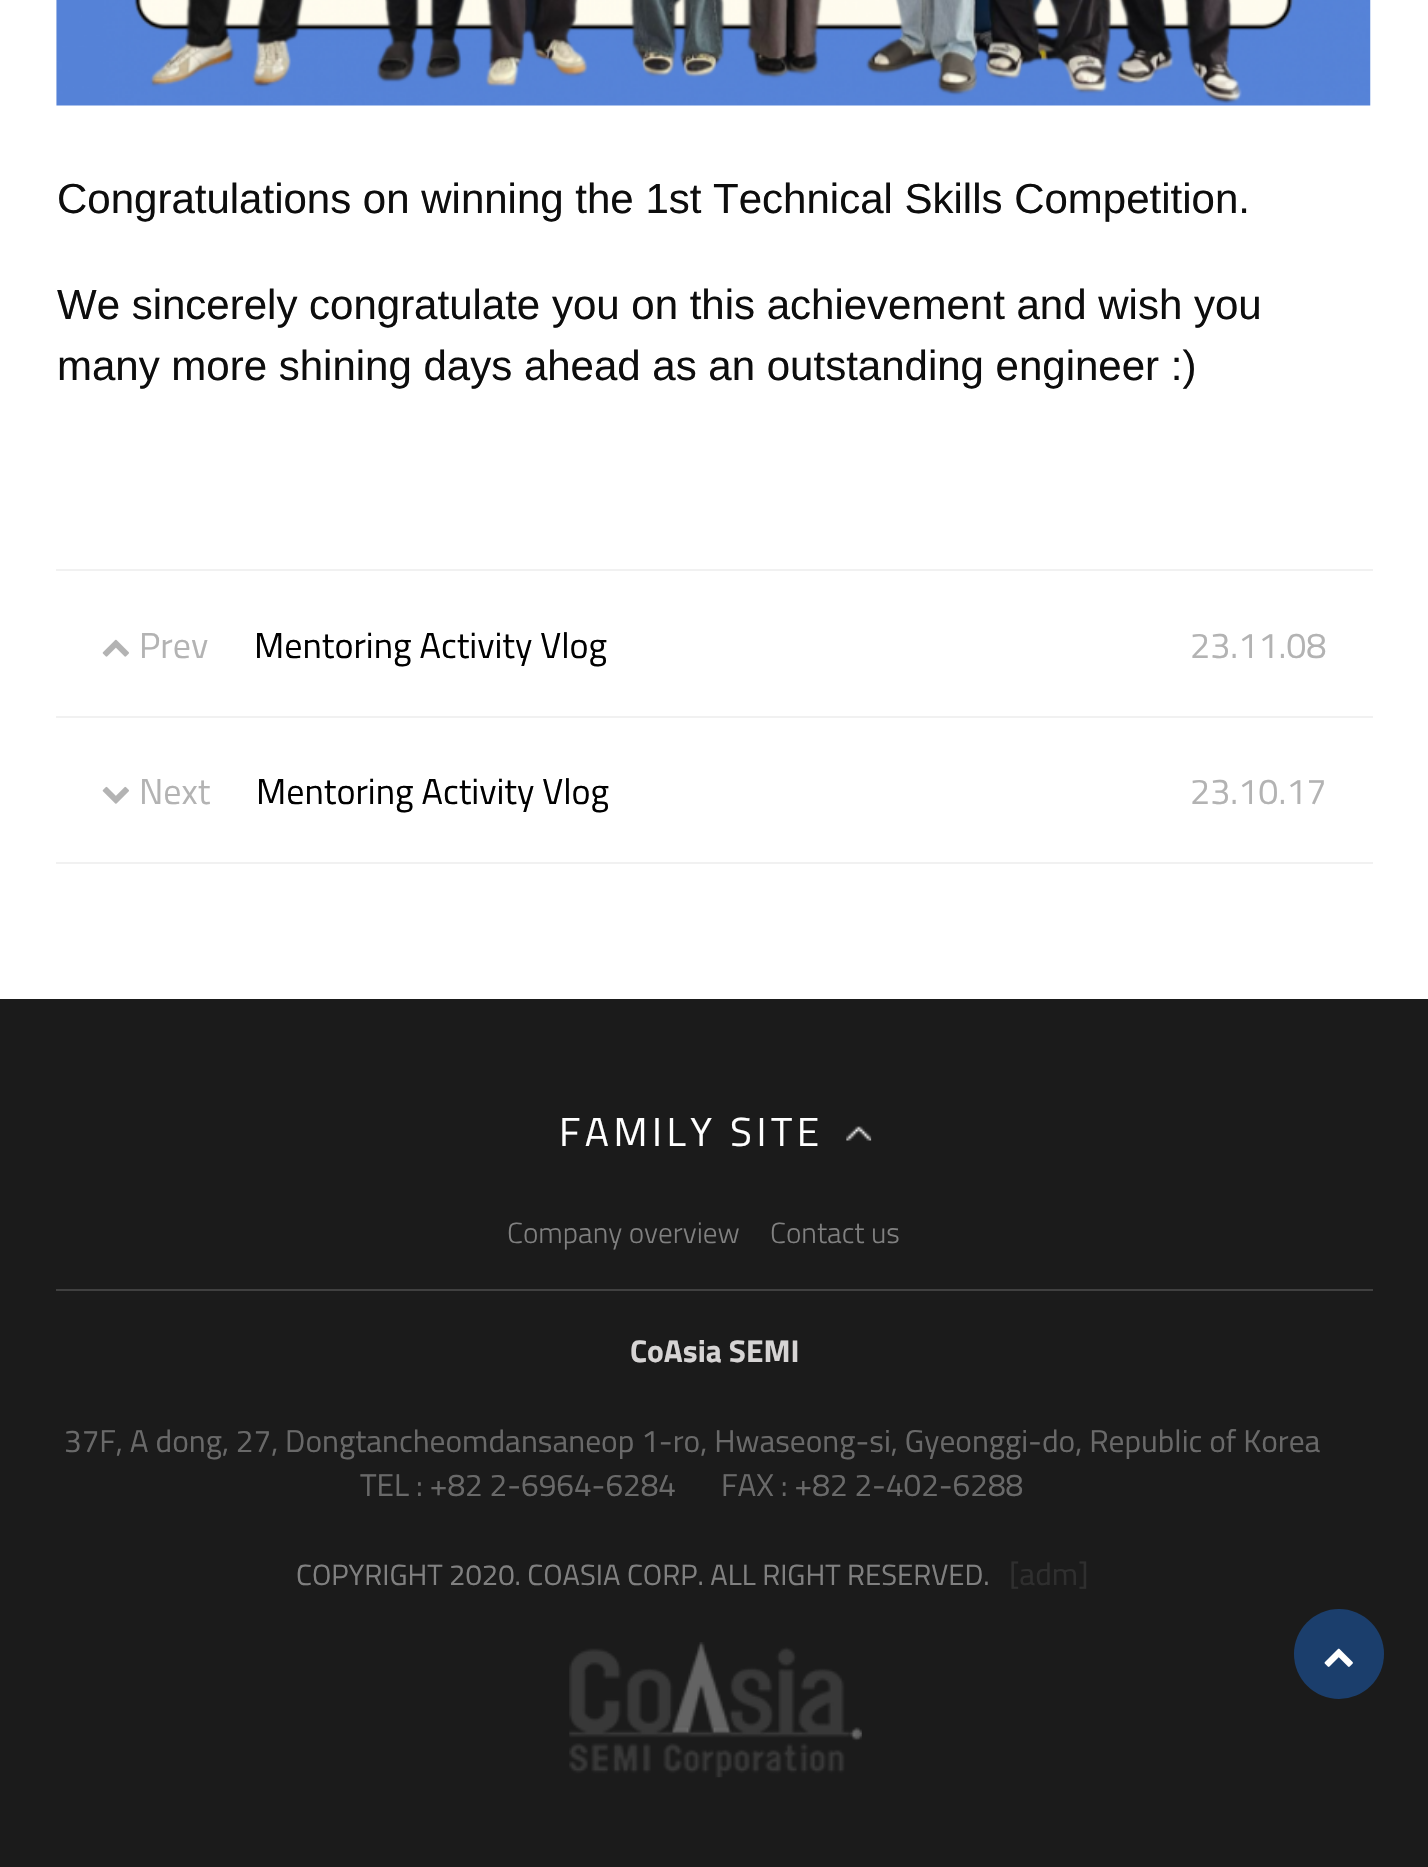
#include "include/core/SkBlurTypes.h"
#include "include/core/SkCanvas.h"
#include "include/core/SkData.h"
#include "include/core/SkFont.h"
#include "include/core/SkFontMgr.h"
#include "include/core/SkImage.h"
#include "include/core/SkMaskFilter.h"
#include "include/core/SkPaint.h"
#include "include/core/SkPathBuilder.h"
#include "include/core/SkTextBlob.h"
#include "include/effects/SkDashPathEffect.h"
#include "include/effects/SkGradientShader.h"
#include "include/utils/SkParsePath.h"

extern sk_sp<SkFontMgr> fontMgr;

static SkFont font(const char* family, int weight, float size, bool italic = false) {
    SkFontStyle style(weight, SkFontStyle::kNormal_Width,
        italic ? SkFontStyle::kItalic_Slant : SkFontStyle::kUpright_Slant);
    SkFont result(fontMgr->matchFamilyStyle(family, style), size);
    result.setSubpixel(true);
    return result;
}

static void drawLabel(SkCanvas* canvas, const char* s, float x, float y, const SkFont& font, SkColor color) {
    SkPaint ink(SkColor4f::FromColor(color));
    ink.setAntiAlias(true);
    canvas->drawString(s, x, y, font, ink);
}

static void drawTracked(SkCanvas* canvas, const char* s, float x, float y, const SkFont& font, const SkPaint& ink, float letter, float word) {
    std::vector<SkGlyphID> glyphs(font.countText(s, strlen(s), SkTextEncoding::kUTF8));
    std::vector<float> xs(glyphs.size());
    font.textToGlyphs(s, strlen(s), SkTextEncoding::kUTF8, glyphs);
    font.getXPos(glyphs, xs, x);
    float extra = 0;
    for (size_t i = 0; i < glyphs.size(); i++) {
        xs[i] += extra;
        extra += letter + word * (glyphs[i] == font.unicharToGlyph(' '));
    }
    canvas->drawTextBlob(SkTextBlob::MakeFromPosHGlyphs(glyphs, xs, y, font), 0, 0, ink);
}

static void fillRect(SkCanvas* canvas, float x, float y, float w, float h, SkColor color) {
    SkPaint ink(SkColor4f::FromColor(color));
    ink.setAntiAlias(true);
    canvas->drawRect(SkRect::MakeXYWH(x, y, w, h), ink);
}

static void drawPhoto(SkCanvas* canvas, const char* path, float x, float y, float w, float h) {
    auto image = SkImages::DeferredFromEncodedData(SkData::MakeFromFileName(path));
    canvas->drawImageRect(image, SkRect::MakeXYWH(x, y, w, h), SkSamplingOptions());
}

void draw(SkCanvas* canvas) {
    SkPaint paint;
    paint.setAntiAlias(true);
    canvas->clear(0xFFFFFFFF);
    drawPhoto(canvas, "assets/img1.png", 56, 0, 1315, 106);
    SkFont font1 = font("Liberation Sans", 400, 42);
    drawLabel(canvas, "Congratulations on winning the 1st Technical Skills Competition.", 57, 213, font1, 0xFF0D0D0D);
    drawLabel(canvas, "We sincerely congratulate you on this achievement and wish you", 57, 319, font1, 0xFF0D0D0D);
    drawLabel(canvas, "many more shining days ahead as an outstanding engineer :)", 57, 380, font1, 0xFF0D0D0D);
    fillRect(canvas, 56, 569, 1317, 2, 0xFFF1F1F1);
    drawPhoto(canvas, "assets/img2.png", 102, 639, 27, 18);
    SkFont font2 = font("Titillium Web", 400, 36);
    drawLabel(canvas, "Prev", 139, 658, font2, 0xFFB3B3B3);
    drawLabel(canvas, "Mentoring Activity Vlog", 254, 658, font2, 0xFF000000);
    drawLabel(canvas, "23.11.08", 1190, 658, font2, 0xFFB3B3B3);
    fillRect(canvas, 56, 716, 1317, 2, 0xFFF1F1F1);
    fillRect(canvas, 56, 862, 1317, 2, 0xFFF1F1F1);
    drawPhoto(canvas, "assets/img3.png", 102, 786, 27, 18);
    drawLabel(canvas, "Next", 139, 804, font2, 0xFFB3B3B3);
    drawLabel(canvas, "Mentoring Activity Vlog", 256, 804, font2, 0xFF000000);
    drawLabel(canvas, "23.10.17", 1190, 804, font2, 0xFFB3B3B3);
    fillRect(canvas, 0, 999, 1428, 868, 0xFF1B1B1B);
    fillRect(canvas, 56, 1289, 1317, 2, 0xFF404040);
    SkFont font3 = font("Titillium Web", 400, 40.5f);
    paint.setColor(0xFFFFFFFF);
    drawTracked(canvas, "FAMILY SITE", 559, 1146, font3, paint, 4.5f, 0);
    drawPhoto(canvas, "assets/img4.png", 846, 1126, 26, 15);
    SkFont font4 = font("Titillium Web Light", 300, 29.25f);
    drawLabel(canvas, "Company overview", 507, 1243, font4, 0xFF808080);
    drawLabel(canvas, "Contact us", 770, 1243, font4, 0xFF808080);
    SkFont font5 = font("Titillium Web", 700, 31.5f);
    drawLabel(canvas, "CoAsia SEMI", 630, 1362, font5, 0xFFD6D4D4);
    SkFont font6 = font("Titillium Web", 400, 31.5f);
    drawLabel(canvas, "37F, A dong, 27, Dongtancheomdansaneop 1-ro, Hwaseong-si, Gyeonggi-do, Republic of Korea", 64, 1452, font6, 0xFF696969);
    drawLabel(canvas, "TEL : +82 2-6964-6284", 360, 1496, font6, 0xFF696969);
    drawLabel(canvas, "FAX : +82 2-402-6288", 721, 1496, font6, 0xFF696969);
    SkFont font7 = font("Titillium Web", 400, 29.25f);
    drawLabel(canvas, "COPYRIGHT 2020. COASIA CORP. ALL RIGHT RESERVED.", 296, 1585, font7, 0xFF808080);
    drawLabel(canvas, "[adm]", 1009, 1585, font6, 0xFF2F2F2F);
    drawPhoto(canvas, "assets/img5.png", 569, 1642, 293, 136);
    paint.setColor(0xFF1B3E6C);
    canvas->drawCircle(1339, 1654, 45, paint);
    drawPhoto(canvas, "assets/img6.png", 1324, 1648, 29, 19);
}
